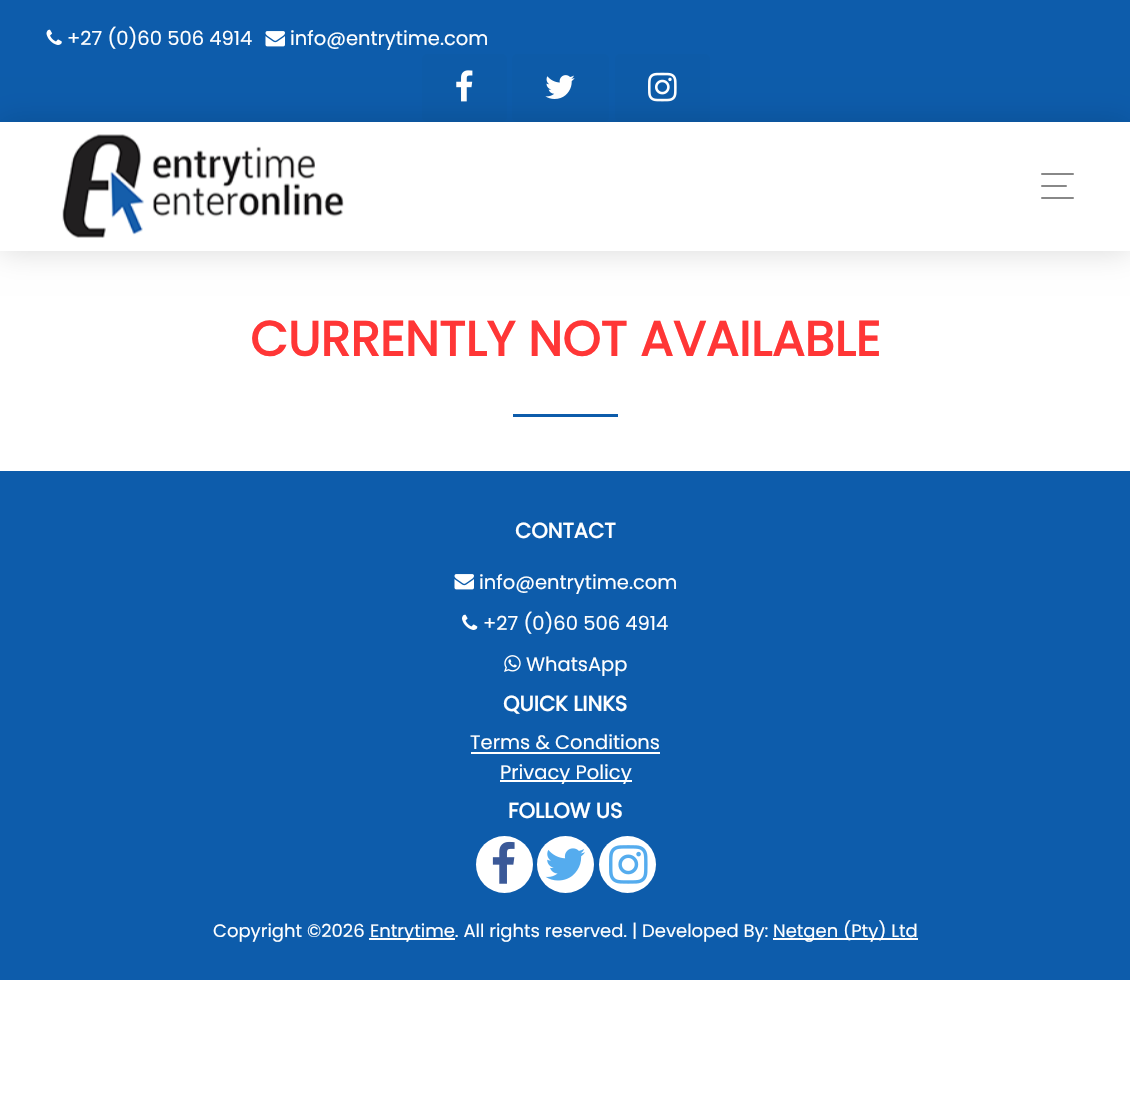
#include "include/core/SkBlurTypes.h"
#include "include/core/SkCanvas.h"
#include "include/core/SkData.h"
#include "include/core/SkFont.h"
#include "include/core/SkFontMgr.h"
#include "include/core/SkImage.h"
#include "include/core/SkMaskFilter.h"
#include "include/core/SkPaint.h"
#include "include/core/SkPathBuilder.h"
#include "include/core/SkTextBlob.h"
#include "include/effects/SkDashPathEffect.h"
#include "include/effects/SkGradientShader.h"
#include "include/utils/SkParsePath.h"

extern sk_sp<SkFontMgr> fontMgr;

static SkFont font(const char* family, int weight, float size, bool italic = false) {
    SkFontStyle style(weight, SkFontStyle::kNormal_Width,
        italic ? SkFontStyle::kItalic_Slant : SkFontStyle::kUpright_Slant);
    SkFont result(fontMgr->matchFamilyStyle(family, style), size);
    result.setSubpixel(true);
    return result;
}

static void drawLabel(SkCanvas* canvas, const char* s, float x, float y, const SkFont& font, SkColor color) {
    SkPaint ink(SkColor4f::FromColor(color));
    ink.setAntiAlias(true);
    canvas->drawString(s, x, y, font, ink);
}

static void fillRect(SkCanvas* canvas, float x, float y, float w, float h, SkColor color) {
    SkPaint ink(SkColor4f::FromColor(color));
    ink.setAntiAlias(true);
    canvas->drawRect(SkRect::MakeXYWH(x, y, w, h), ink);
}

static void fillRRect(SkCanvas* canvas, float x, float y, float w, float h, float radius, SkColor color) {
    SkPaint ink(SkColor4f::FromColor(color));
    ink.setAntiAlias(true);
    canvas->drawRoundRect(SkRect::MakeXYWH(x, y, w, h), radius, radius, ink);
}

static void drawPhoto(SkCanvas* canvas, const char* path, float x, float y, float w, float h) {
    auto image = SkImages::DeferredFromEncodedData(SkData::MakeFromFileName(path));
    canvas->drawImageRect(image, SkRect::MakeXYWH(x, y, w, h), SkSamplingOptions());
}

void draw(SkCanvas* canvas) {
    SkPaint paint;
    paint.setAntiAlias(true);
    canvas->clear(0xFFFFFFFF);
    fillRect(canvas, 0, 0, 1130, 122, 0xFF0D5CAB);
    drawPhoto(canvas, "assets/img1.png", 46, 29, 16, 16);
    SkFont font1 = font("Poppins", 400, 19.5f);
    drawLabel(canvas, "+27 (0)60 506 4914", 67, 45, font1, 0xFFFFFFFF);
    drawPhoto(canvas, "assets/img2.png", 265, 31, 20, 16);
    drawLabel(canvas, "info@entrytime.com", 290, 45, font1, 0xFFFFFFFF);
    fillRRect(canvas, 422, 54, 85, 68, 5, 0xFF0D5BA8);
    drawPhoto(canvas, "assets/img3.png", 456, 70, 17, 32);
    fillRRect(canvas, 512, 54, 97, 68, 5, 0xFF0D5BA8);
    drawPhoto(canvas, "assets/img4.png", 545, 75, 30, 24);
    fillRRect(canvas, 615, 54, 95, 68, 5, 0xFF0D5BA8);
    drawPhoto(canvas, "assets/img5.png", 648, 72, 29, 30);
    paint.setColor(0x26000000);
    paint.setMaskFilter(SkMaskFilter::MakeBlur(kNormal_SkBlurStyle, 15));
    canvas->drawRect(SkRect::MakeXYWH(0, 122, 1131, 129), paint);
    paint.setMaskFilter(nullptr);
    fillRect(canvas, 0, 122, 1130, 129, 0xFFFFFFFF);
    drawPhoto(canvas, "assets/img6.png", 62, 134, 282, 104);
    fillRRect(canvas, 1041, 173, 33, 2, 1, 0xFF888888);
    fillRRect(canvas, 1041, 185, 26, 2, 1, 0xFF888888);
    fillRRect(canvas, 1041, 197, 33, 2, 1, 0xFF888888);
    SkFont font2 = font("Poppins", 700, 48.75f);
    drawLabel(canvas, "CURRENTLY NOT AVAILABLE", 250, 356, font2, 0xFFFF3636);
    fillRect(canvas, 513, 414, 105, 3, 0xFF0D5CAB);
    fillRect(canvas, 0, 471, 1130, 509, 0xFF0D5CAB);
    SkFont font3 = font("Poppins", 700, 21);
    drawLabel(canvas, "CONTACT", 515, 538, font3, 0xFFFFFFFF);
    drawPhoto(canvas, "assets/img2.png", 454, 574, 20, 16);
    drawLabel(canvas, "info@entrytime.com", 479, 589, font1, 0xFFFFFFFF);
    drawPhoto(canvas, "assets/img7.png", 462, 614, 16, 16);
    drawLabel(canvas, "+27 (0)60 506 4914", 483, 630, font1, 0xFFFFFFFF);
    drawPhoto(canvas, "assets/img8.png", 504, 655, 17, 17);
    drawLabel(canvas, "WhatsApp", 526, 671, font1, 0xFFFFFFFF);
    drawLabel(canvas, "QUICK LINKS", 503, 711, font3, 0xFFFFFFFF);
    drawLabel(canvas, "Terms & Conditions", 470, 749, font1, 0xFFFFFFFF);
    fillRect(canvas, 471, 752, 189, 2, 0xFFFFFFFF);
    fillRect(canvas, 500, 780, 132, 2, 0xFFFFFFFF);
    drawLabel(canvas, "Privacy Policy", 500, 779, font1, 0xFFFFFFFF);
    drawLabel(canvas, "FOLLOW US", 508, 818, font3, 0xFFFFFFFF);
    paint.setColor(0xFFFFFFFF);
    canvas->drawCircle(504.5f, 864.5f, 28.5f, paint);
    drawPhoto(canvas, "assets/img9.png", 492, 841, 23, 43);
    canvas->drawCircle(565.5f, 864.5f, 28.5f, paint);
    drawPhoto(canvas, "assets/img10.png", 545, 848, 40, 33);
    canvas->drawCircle(627.5f, 864.5f, 28.5f, paint);
    drawPhoto(canvas, "assets/img11.png", 609, 845, 39, 39);
    SkFont font4 = font("Poppins", 400, 18);
    drawLabel(canvas, "Copyright ©2026", 213, 937, font4, 0xFFFFFFFF);
    fillRect(canvas, 369, 938, 86, 2, 0xFFFFFFFF);
    drawLabel(canvas, "Entrytime. All rights reserved. | Developed By:", 370, 937, font4, 0xFFFFFFFF);
    fillRect(canvas, 773, 938, 145, 2, 0xFFFFFFFF);
    drawLabel(canvas, "Netgen (Pty) Ltd", 773, 937, font4, 0xFFFFFFFF);
}
